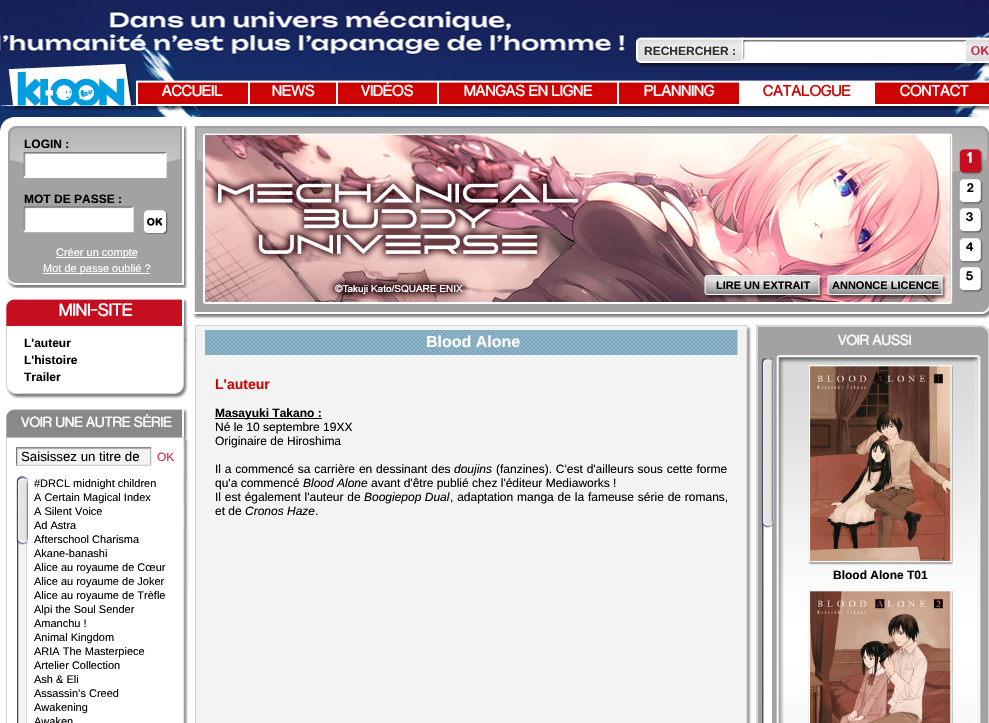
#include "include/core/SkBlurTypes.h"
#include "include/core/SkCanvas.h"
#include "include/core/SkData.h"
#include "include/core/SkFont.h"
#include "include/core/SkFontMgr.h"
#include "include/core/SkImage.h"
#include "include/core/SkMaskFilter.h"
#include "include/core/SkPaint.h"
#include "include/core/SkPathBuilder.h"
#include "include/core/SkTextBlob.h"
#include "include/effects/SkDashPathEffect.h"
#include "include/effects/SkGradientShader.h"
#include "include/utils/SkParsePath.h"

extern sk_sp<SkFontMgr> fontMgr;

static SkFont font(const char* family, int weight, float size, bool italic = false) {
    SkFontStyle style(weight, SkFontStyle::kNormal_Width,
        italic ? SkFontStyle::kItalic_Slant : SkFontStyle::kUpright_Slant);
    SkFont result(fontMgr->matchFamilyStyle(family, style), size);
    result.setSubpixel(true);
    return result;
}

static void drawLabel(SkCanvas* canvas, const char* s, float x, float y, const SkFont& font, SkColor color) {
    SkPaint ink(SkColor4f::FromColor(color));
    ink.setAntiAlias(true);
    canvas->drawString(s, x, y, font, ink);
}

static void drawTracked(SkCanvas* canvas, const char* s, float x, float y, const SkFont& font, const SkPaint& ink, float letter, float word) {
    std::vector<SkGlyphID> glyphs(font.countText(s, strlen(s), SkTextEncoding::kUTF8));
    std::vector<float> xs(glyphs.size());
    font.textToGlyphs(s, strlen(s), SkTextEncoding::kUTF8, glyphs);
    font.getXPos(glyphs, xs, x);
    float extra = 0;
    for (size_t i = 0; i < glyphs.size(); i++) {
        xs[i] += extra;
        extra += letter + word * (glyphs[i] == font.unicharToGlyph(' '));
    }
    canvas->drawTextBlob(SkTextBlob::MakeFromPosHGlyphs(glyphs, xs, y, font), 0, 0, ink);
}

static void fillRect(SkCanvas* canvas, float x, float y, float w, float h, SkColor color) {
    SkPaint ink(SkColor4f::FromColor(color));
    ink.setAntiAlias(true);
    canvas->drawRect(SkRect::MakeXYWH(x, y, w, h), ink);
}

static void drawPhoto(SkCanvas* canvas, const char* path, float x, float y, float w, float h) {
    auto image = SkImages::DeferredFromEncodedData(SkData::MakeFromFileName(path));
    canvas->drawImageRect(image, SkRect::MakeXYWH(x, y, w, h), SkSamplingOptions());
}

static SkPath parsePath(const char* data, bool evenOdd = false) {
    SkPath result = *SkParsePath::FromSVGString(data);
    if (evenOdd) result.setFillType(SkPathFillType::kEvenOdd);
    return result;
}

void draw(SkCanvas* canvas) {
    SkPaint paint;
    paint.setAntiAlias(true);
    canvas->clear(0xFFFFFFFF);
    drawPhoto(canvas, "assets/img1.png", 0, 0, 989, 132);
    drawPhoto(canvas, "assets/img2.png", 636, 36, 353, 32);
    SkFont font1 = font("Liberation Sans", 700, 12);
    drawLabel(canvas, "RECHERCHER :", 644, 55, font1, 0xFF2E2D30);
    drawPhoto(canvas, "assets/img3.png", 966, 40, 23, 21);
    drawPhoto(canvas, "assets/img5.png", 136, 80, 853, 31);
    drawPhoto(canvas, "assets/img4.png", 1, 64, 141, 47);
    SkFont font2 = font("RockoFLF", 500, 14);
    drawLabel(canvas, "ACCUEIL", 162, 96, font2, 0xFFFFFFFF);
    fillRect(canvas, 248, 82, 2, 22, 0xFFFFFFFF);
    drawLabel(canvas, "NEWS", 272, 96, font2, 0xFFFFFFFF);
    fillRect(canvas, 336, 82, 2, 22, 0xFFFFFFFF);
    drawLabel(canvas, "VIDÉOS", 361, 96, font2, 0xFFFFFFFF);
    fillRect(canvas, 437, 82, 2, 22, 0xFFFFFFFF);
    drawLabel(canvas, "MANGAS EN LIGNE", 464, 96, font2, 0xFFFFFFFF);
    fillRect(canvas, 617, 82, 2, 22, 0xFFFFFFFF);
    drawLabel(canvas, "PLANNING", 644, 96, font2, 0xFFFFFFFF);
    fillRect(canvas, 739, 82, 136, 22, 0xFFFFFFFF);
    drawLabel(canvas, "CATALOGUE", 763, 96, font2, 0xFFCF0404);
    drawLabel(canvas, "CONTACT", 900, 96, font2, 0xFFFFFFFF);
    paint.setColor(0xFFFFFFFF);
    canvas->drawPath(parsePath("M15 117H985C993.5 117 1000 123.5 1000 132V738H0V132C0 123.5 6.5 117 15 117Z"), paint);
    drawPhoto(canvas, "assets/img6.png", 6, 125, 181, 163);
    drawLabel(canvas, "LOGIN :", 24, 148, font1, 0xFF000000);
    drawLabel(canvas, "MOT DE PASSE :", 24, 203, font1, 0xFF000000);
    drawPhoto(canvas, "assets/img7.png", 143, 210, 25, 24);
    fillRect(canvas, 56, 257, 81, 1, 0xFFFFFFFF);
    SkFont font3 = font("Liberation Sans", 400, 11);
    drawLabel(canvas, "Créer un compte", 56, 256, font3, 0xFFFFFFFF);
    fillRect(canvas, 43, 273, 107, 1, 0xFFFFFFFF);
    drawLabel(canvas, "Mot de passe oublié ?", 43, 272, font3, 0xFFFFFFFF);
    drawPhoto(canvas, "assets/img8.png", 193, 125, 796, 194);
    drawPhoto(canvas, "assets/img9.png", 959, 149, 24, 26);
    SkFont font4 = font("RockoFLF", 700, 14);
    drawLabel(canvas, "1", 967, 163, font4, 0xFFFFFFFF);
    drawPhoto(canvas, "assets/img10.png", 205, 135, 745, 167);
    drawPhoto(canvas, "assets/img11.png", 704, 275, 60, 25);
    drawPhoto(canvas, "assets/img12.png", 764, 275, 60, 25);
    SkFont font5 = font("Liberation Sans", 700, 11);
    drawLabel(canvas, "LIRE UN EXTRAIT", 716, 289, font5, 0xFF000000);
    drawPhoto(canvas, "assets/img13.png", 827, 275, 60, 25);
    drawPhoto(canvas, "assets/img14.png", 887, 275, 60, 25);
    drawLabel(canvas, "ANNONCE LICENCE", 832, 289, font5, 0xFF000000);
    drawPhoto(canvas, "assets/img15.png", 959, 179, 24, 26);
    SkFont font6 = font("RockoFLF", 700, 11);
    drawLabel(canvas, "2", 967, 192, font6, 0xFF000000);
    drawPhoto(canvas, "assets/img15.png", 959, 208, 24, 26);
    drawLabel(canvas, "3", 966, 221, font6, 0xFF000000);
    drawPhoto(canvas, "assets/img15.png", 959, 238, 24, 26);
    drawLabel(canvas, "4", 966, 251, font6, 0xFF000000);
    drawPhoto(canvas, "assets/img15.png", 959, 267, 24, 26);
    drawLabel(canvas, "5", 966, 280, font6, 0xFF000000);
    drawPhoto(canvas, "assets/img16.png", 6, 326, 182, 73);
    drawPhoto(canvas, "assets/img17.png", 6, 297, 182, 29);
    SkFont font7 = font("RockoFLF", 500, 16);
    drawLabel(canvas, "MINI-SITE", 59, 316, font7, 0xFFFFFFFF);
    drawLabel(canvas, "L'auteur", 24, 347, font1, 0xFF000000);
    drawLabel(canvas, "L'histoire", 24, 364, font1, 0xFF000000);
    drawLabel(canvas, "Trailer", 24, 381, font1, 0xFF000000);
    drawPhoto(canvas, "assets/img18.png", 6, 476, 183, 247);
    drawPhoto(canvas, "assets/img19.png", 6, 407, 183, 69);
    SkFont font8 = font("RockoFLF", 500, 13);
    drawLabel(canvas, "VOIR UNE AUTRE SÉRIE", 21, 427, font8, 0xFFFFFFFF);
    SkFont font9 = font("Liberation Sans", 400, 13.25f);
    drawLabel(canvas, "Saisissez un titre de", 21, 461, font9, 0xFF000000);
    SkFont font10 = font("Liberation Sans", 400, 12);
    drawLabel(canvas, "OK", 157, 461, font10, 0xFFC92B49);
    drawPhoto(canvas, "assets/img20.png", 17, 486, 10, 237);
    drawPhoto(canvas, "assets/img21.png", 16, 486, 12, 49);
    drawPhoto(canvas, "assets/img24.png", 17, 476, 10, 10);
    drawPhoto(canvas, "assets/img22.png", 16, 476, 13, 10);
    drawPhoto(canvas, "assets/img23.png", 16, 535, 13, 10);
    drawLabel(canvas, "#DRCL midnight children", 34, 487, font3, 0xFF000000);
    drawLabel(canvas, "A Certain Magical Index", 34, 501, font3, 0xFF000000);
    drawLabel(canvas, "A Silent Voice", 34, 515, font3, 0xFF000000);
    drawLabel(canvas, "Ad Astra", 34, 529, font3, 0xFF000000);
    drawLabel(canvas, "Afterschool Charisma", 34, 543, font3, 0xFF000000);
    drawLabel(canvas, "Akane-banashi", 34, 557, font3, 0xFF000000);
    drawLabel(canvas, "Alice au royaume de Cœur", 34, 571, font3, 0xFF000000);
    drawLabel(canvas, "Alice au royaume de Joker", 34, 585, font3, 0xFF000000);
    drawLabel(canvas, "Alice au royaume de Trèfle", 34, 599, font3, 0xFF000000);
    drawLabel(canvas, "Alpi the Soul Sender", 34, 613, font3, 0xFF000000);
    drawLabel(canvas, "Amanchu !", 34, 627, font3, 0xFF000000);
    drawLabel(canvas, "Animal Kingdom", 34, 641, font3, 0xFF000000);
    drawLabel(canvas, "ARIA The Masterpiece", 34, 655, font3, 0xFF000000);
    drawLabel(canvas, "Artelier Collection", 34, 669, font3, 0xFF000000);
    drawLabel(canvas, "Ash & Eli", 34, 683, font3, 0xFF000000);
    drawLabel(canvas, "Assassin’s Creed", 34, 697, font3, 0xFF000000);
    drawLabel(canvas, "Awakening", 34, 711, font3, 0xFF000000);
    drawLabel(canvas, "Awaken", 34, 725, font3, 0xFF000000);
    drawPhoto(canvas, "assets/img25.png", 195, 325, 557, 398);
    drawPhoto(canvas, "assets/img26.png", 196, 325, 556, 30);
    SkFont font11 = font("Liberation Sans", 700, 16);
    drawLabel(canvas, "Blood Alone", 426, 347, font11, 0xFFFFFFFF);
    SkFont font12 = font("Liberation Sans", 700, 14);
    drawLabel(canvas, "L'auteur", 215, 389, font12, 0xFFCF0404);
    fillRect(canvas, 215, 418, 107, 1, 0xFF000000);
    drawLabel(canvas, "Masayuki Takano :", 215, 417, font1, 0xFF000000);
    drawLabel(canvas, "Né le 10 septembre 19XX", 215, 431, font10, 0xFF000000);
    drawLabel(canvas, "Originaire de Hiroshima", 215, 445, font10, 0xFF000000);
    paint.setColor(0xFF000000);
    drawTracked(canvas, "Il a commencé sa carrière en dessinant des", 215, 473, font10, paint, 0, 0.5f);
    SkFont font13 = font("Liberation Sans", 400, 12, true);
    drawLabel(canvas, "doujins", 454, 473, font13, 0xFF000000);
    drawTracked(canvas, "(fanzines). C'est d'ailleurs sous cette forme", 496, 473, font10, paint, 0, 0.5f);
    drawLabel(canvas, "qu'a commencé", 215, 487, font10, 0xFF000000);
    drawLabel(canvas, "Blood Alone", 303, 487, font13, 0xFF000000);
    drawLabel(canvas, "avant d'être publié chez l'éditeur Mediaworks !", 371, 487, font10, 0xFF000000);
    drawTracked(canvas, "Il est également l'auteur de", 215, 501, font10, paint, 0, 0.5f);
    drawLabel(canvas, "Boogiepop Dual", 364, 501, font13, 0xFF000000);
    drawTracked(canvas, ", adaptation manga de la fameuse série de romans,", 450, 501, font10, paint, 0, 0.5f);
    drawLabel(canvas, "et de", 215, 515, font10, 0xFF000000);
    drawLabel(canvas, "Cronos Haze", 245, 515, font13, 0xFF000000);
    drawLabel(canvas, ".", 315, 515, font10, 0xFF000000);
    drawPhoto(canvas, "assets/img27.png", 756, 325, 233, 32);
    drawLabel(canvas, "VOIR AUSSI", 838, 345, font8, 0xFFFFFFFF);
    drawPhoto(canvas, "assets/img29.png", 756, 357, 233, 366);
    drawPhoto(canvas, "assets/img28.png", 776, 355, 205, 8);
    drawPhoto(canvas, "assets/img30.png", 776, 363, 8, 360);
    drawPhoto(canvas, "assets/img31.png", 762, 367, 10, 356);
    drawPhoto(canvas, "assets/img32.png", 761, 367, 13, 151);
    drawPhoto(canvas, "assets/img35.png", 762, 357, 10, 10);
    drawPhoto(canvas, "assets/img33.png", 761, 357, 13, 10);
    drawPhoto(canvas, "assets/img34.png", 761, 518, 13, 10);
    drawPhoto(canvas, "assets/img36.png", 808, 365, 145, 200);
    drawLabel(canvas, "Blood Alone T01", 833, 579, font1, 0xFF000000);
    drawPhoto(canvas, "assets/img37.png", 808, 590, 145, 133);
    drawPhoto(canvas, "assets/img38.png", 974, 363, 7, 360);
}
